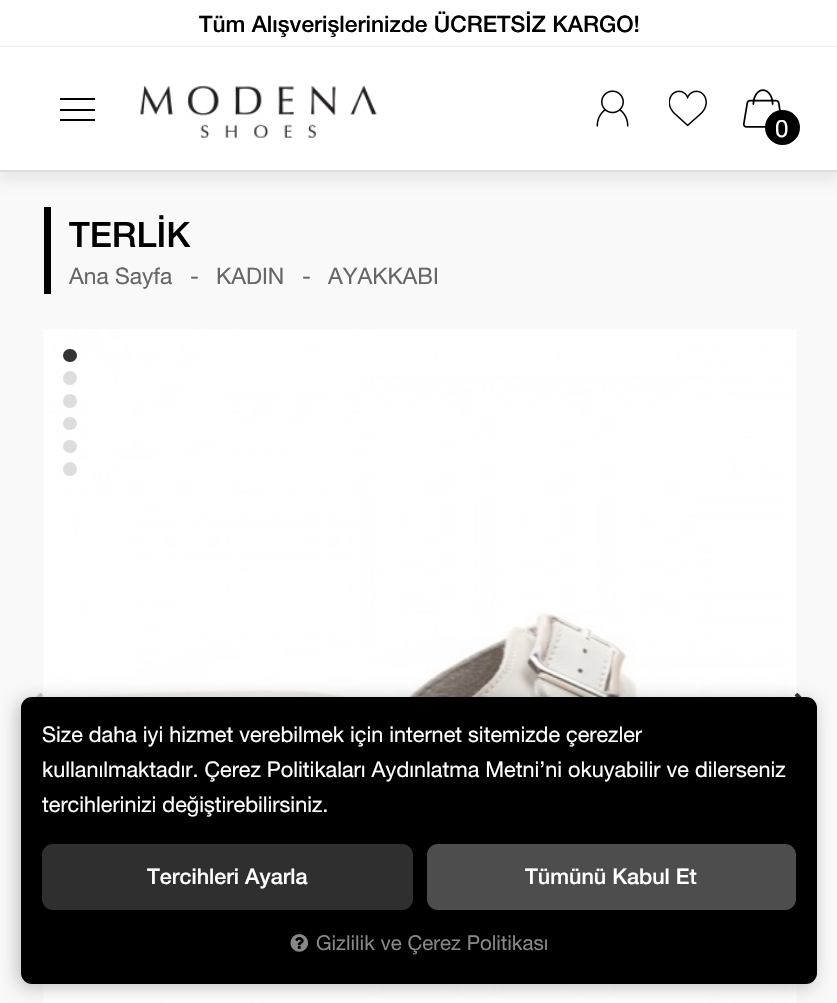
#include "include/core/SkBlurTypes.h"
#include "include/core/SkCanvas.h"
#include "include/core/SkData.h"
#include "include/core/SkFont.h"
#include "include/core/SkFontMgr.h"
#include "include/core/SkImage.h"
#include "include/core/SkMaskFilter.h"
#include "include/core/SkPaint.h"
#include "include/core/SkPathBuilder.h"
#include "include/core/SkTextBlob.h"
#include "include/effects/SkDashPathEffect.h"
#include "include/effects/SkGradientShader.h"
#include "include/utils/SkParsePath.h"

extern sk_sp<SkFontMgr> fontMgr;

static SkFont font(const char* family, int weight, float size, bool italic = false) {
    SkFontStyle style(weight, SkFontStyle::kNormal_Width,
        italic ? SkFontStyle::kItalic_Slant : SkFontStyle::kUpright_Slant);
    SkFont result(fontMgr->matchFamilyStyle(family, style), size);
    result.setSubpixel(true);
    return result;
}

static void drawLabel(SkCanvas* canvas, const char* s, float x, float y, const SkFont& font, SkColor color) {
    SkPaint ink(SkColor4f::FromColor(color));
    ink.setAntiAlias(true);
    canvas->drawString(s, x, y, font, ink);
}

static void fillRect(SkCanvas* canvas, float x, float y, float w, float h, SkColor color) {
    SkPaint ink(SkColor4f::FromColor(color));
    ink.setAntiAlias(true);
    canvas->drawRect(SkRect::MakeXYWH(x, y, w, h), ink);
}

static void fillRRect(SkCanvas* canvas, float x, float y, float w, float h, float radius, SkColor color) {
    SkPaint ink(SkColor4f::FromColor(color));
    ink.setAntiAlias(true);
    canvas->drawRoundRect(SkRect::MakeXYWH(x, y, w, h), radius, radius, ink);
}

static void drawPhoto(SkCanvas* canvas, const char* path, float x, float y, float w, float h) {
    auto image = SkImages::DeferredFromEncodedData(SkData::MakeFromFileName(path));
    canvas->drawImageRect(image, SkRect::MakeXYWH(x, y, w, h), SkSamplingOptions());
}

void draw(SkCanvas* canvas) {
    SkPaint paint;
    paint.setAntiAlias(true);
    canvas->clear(0xFFF9F9F9);
    fillRect(canvas, 0, 0, 837, 46, 0xFFFFFFFF);
    fillRect(canvas, 0, 46, 837, 1, 0xFFF0F0F0);
    SkFont font1 = font("Helvetica Neue", 500, 22.75f);
    drawLabel(canvas, "Tüm Alışverişlerinizde ÜCRETSİZ KARGO!", 199, 32, font1, 0xFF000000);
    paint.setColor(0x0F000000);
    paint.setMaskFilter(SkMaskFilter::MakeBlur(kNormal_SkBlurStyle, 5));
    canvas->drawRect(SkRect::MakeXYWH(0, 58, 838, 124), paint);
    paint.setMaskFilter(nullptr);
    fillRect(canvas, 0, 47, 837, 123, 0xFFFFFFFF);
    fillRect(canvas, 0, 170, 837, 2, 0xFFDDDDDD);
    fillRect(canvas, 60, 98, 35, 2, 0xFF000000);
    fillRect(canvas, 60, 109, 35, 2, 0xFF000000);
    fillRect(canvas, 60, 119, 35, 2, 0xFF000000);
    drawPhoto(canvas, "assets/img1.png", 140, 86, 237, 52);
    drawPhoto(canvas, "assets/img2.png", 596, 90, 33, 37);
    drawPhoto(canvas, "assets/img3.png", 669, 90, 38, 37);
    drawPhoto(canvas, "assets/img4.png", 742, 89, 39, 39);
    paint.setColor(0xFF000000);
    canvas->drawCircle(782.5f, 127.5f, 17.5f, paint);
    SkFont font2 = font("Helvetica Neue", 400, 24);
    drawLabel(canvas, "0", 775, 137, font2, 0xFFFFFFFF);
    fillRect(canvas, 44, 207, 7, 87, 0xFF000000);
    SkFont font3 = font("Helvetica Neue", 500, 35);
    drawLabel(canvas, "TERLİK", 69, 247, font3, 0xFF000000);
    SkFont font4 = font("Helvetica Neue", 400, 22.75f);
    drawLabel(canvas, "Ana Sayfa", 69, 284, font4, 0xFF666666);
    drawLabel(canvas, "-", 190, 284, font4, 0xFF666666);
    drawLabel(canvas, "KADIN", 216, 284, font4, 0xFF666666);
    drawLabel(canvas, "-", 302, 284, font4, 0xFF666666);
    drawLabel(canvas, "AYAKKABI", 328, 284, font4, 0xFF666666);
    fillRect(canvas, 44, 329, 752, 674, 0xFFFFFFFF);
    drawPhoto(canvas, "assets/img5.png", 36, 693, 7, 4);
    drawPhoto(canvas, "assets/img6.png", 43, 329, 745, 674);
    drawPhoto(canvas, "assets/img7.png", 796, 329, 1, 674);
    drawPhoto(canvas, "assets/img8.png", 794, 693, 8, 4);
    paint.setColor(0xFF333333);
    canvas->drawRoundRect(SkRect::MakeXYWH(62, 348, 16, 15), 7.5f, 7.5f, paint);
    paint.setStroke(true);
    paint.setStrokeWidth(2);
    paint.setColor(0xFFFFFFFF);
    canvas->drawRoundRect(SkRect::MakeXYWH(62, 348, 16, 15), 7.5f, 7.5f, paint);
    paint.setStroke(false);
    paint.setColor(0xFFDDDDDD);
    canvas->drawCircle(70, 378, 8, paint);
    paint.setStroke(true);
    paint.setColor(0xFFFFFFFF);
    canvas->drawCircle(70, 378, 8, paint);
    paint.setStroke(false);
    paint.setColor(0xFFDDDDDD);
    canvas->drawCircle(70, 401, 8, paint);
    paint.setStroke(true);
    paint.setColor(0xFFFFFFFF);
    canvas->drawCircle(70, 401, 8, paint);
    paint.setStroke(false);
    paint.setColor(0xFFDDDDDD);
    canvas->drawRoundRect(SkRect::MakeXYWH(62, 416, 16, 15), 7.5f, 7.5f, paint);
    paint.setStroke(true);
    paint.setColor(0xFFFFFFFF);
    canvas->drawRoundRect(SkRect::MakeXYWH(62, 416, 16, 15), 7.5f, 7.5f, paint);
    paint.setStroke(false);
    paint.setColor(0xFFDDDDDD);
    canvas->drawRoundRect(SkRect::MakeXYWH(62, 439, 16, 15), 7.5f, 7.5f, paint);
    paint.setStroke(true);
    paint.setColor(0xFFFFFFFF);
    canvas->drawRoundRect(SkRect::MakeXYWH(62, 439, 16, 15), 7.5f, 7.5f, paint);
    paint.setStroke(false);
    paint.setColor(0xFFDDDDDD);
    canvas->drawCircle(70, 469, 8, paint);
    paint.setStroke(true);
    paint.setColor(0xFFFFFFFF);
    canvas->drawCircle(70, 469, 8, paint);
    paint.setStroke(false);
    paint.setColor(0x40000000);
    paint.setMaskFilter(SkMaskFilter::MakeBlur(kNormal_SkBlurStyle, 9));
    canvas->drawRoundRect(SkRect::MakeXYWH(18, 700, 796, 287), 11, 11, paint);
    paint.setMaskFilter(nullptr);
    fillRRect(canvas, 21, 697, 796, 287, 11, 0xFF000000);
    SkFont font5 = font("Helvetica Neue", 400, 21.6f);
    drawLabel(canvas, "Size daha iyi hizmet verebilmek için internet sitemizde çerezler", 42, 742, font5, 0xFFFFFFFF);
    drawLabel(canvas, "kullanılmaktadır. Çerez Politikaları Aydınlatma Metni’ni okuyabilir ve dilerseniz", 42, 777, font5, 0xFFFFFFFF);
    drawLabel(canvas, "tercihlerinizi değiştirebilirsiniz.", 42, 812, font5, 0xFFFFFFFF);
    fillRRect(canvas, 42, 844, 371, 66, 11, 0xFF2F2F2F);
    SkFont font6 = font("Helvetica Neue", 500, 21.6f);
    drawLabel(canvas, "Tercihleri Ayarla", 147, 884, font6, 0xFFFFFFFF);
    fillRRect(canvas, 427, 844, 369, 66, 11, 0xFF4D4D4D);
    drawLabel(canvas, "Tümünü Kabul Et", 525, 884, font6, 0xFFFFFFFF);
    drawPhoto(canvas, "assets/img9.png", 290, 934, 18, 18);
    SkFont font7 = font("Helvetica Neue", 400, 20.5f);
    drawLabel(canvas, "Gizlilik ve Çerez Politikası", 316, 950, font7, 0xFF888888);
}
